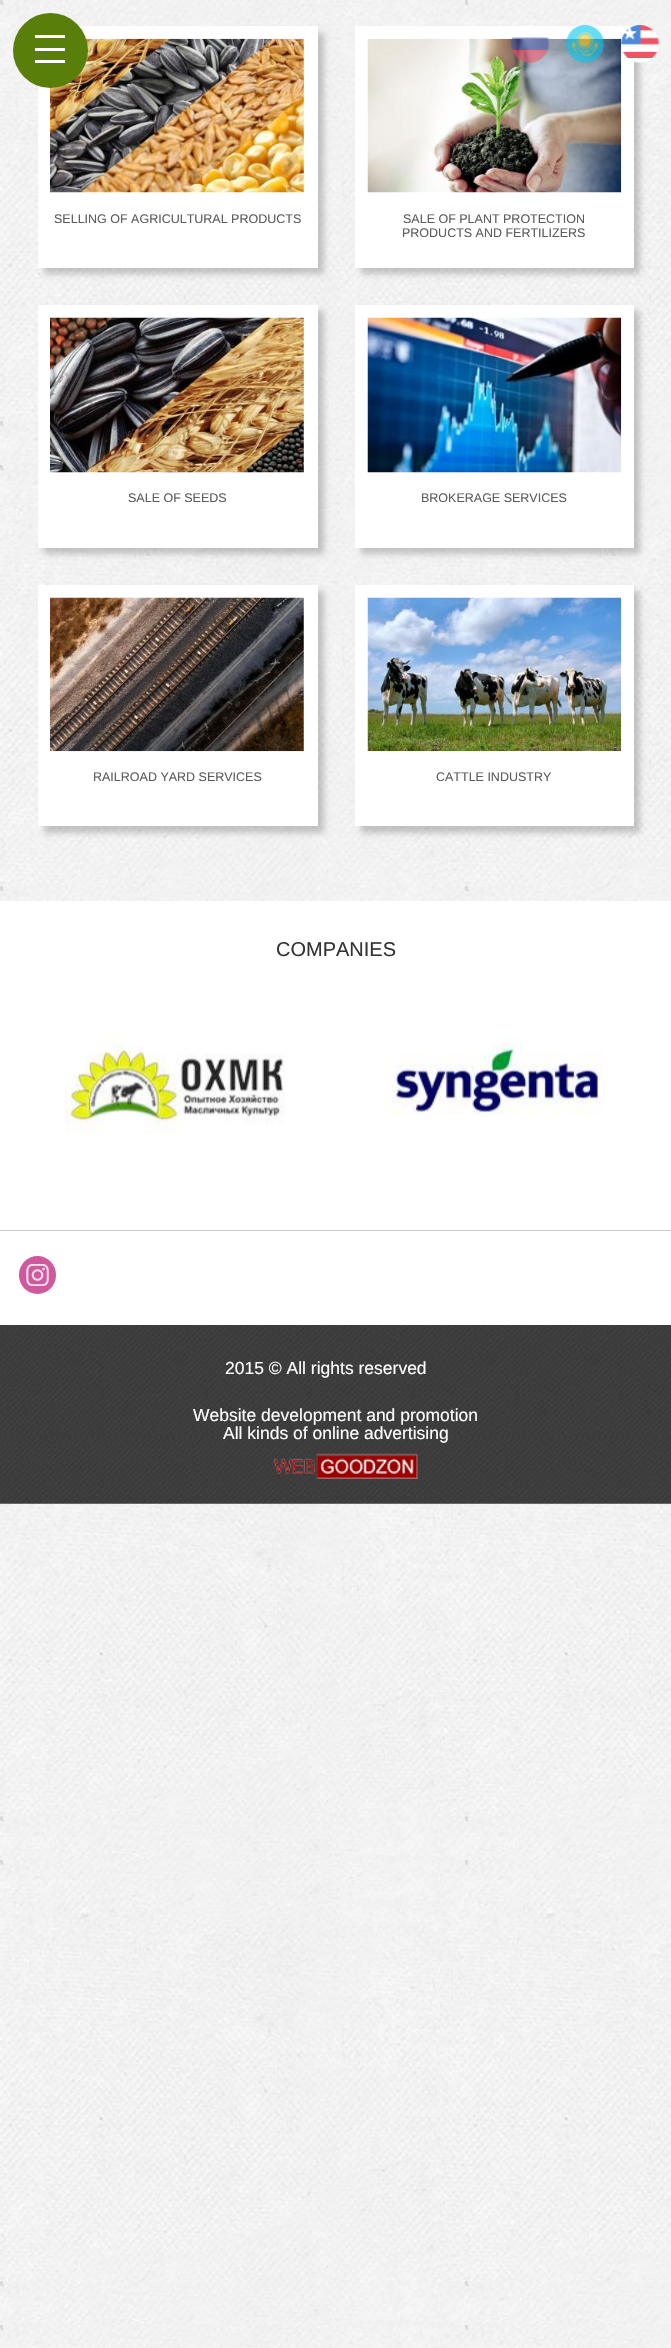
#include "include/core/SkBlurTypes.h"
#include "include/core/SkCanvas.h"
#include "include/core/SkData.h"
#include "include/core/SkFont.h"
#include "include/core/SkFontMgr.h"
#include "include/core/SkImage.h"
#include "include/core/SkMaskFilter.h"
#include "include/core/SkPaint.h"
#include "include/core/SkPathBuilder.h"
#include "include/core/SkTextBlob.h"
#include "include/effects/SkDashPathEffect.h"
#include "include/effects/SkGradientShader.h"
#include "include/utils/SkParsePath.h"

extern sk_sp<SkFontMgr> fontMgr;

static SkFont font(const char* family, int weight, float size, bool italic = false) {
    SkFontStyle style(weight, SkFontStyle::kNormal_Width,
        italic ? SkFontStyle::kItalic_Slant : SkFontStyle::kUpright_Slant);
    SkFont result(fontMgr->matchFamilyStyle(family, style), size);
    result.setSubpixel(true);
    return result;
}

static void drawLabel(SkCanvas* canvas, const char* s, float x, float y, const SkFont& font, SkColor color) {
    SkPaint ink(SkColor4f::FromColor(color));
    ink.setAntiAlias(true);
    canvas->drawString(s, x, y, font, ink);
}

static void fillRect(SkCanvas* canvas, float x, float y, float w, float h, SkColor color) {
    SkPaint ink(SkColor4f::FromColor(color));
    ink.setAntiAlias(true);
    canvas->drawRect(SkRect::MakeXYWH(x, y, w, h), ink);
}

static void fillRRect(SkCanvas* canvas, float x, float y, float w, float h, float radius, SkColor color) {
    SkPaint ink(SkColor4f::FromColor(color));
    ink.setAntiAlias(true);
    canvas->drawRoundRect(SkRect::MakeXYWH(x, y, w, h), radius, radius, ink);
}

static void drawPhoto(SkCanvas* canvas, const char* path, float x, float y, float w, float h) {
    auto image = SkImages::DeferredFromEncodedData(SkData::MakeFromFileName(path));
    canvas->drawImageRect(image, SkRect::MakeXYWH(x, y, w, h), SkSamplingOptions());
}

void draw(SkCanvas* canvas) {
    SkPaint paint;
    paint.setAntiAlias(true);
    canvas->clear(0xFFFFFFFF);
    drawPhoto(canvas, "assets/img1.png", 0, 0, 671, 2348);
    paint.setColor(0x33000000);
    paint.setMaskFilter(SkMaskFilter::MakeBlur(kNormal_SkBlurStyle, 3));
    canvas->drawRect(SkRect::MakeXYWH(44, 33, 280, 241), paint);
    paint.setMaskFilter(nullptr);
    fillRect(canvas, 38, 26, 280, 242, 0xFFFFFFFF);
    drawPhoto(canvas, "assets/img5.png", 50, 38, 254, 155);
    paint.setColor(0xFF597F0A);
    canvas->drawCircle(50.5f, 50.5f, 37.5f, paint);
    fillRect(canvas, 35, 48, 30, 3, 0xFFFFFFFF);
    fillRect(canvas, 35, 35, 30, 3, 0xFFFFFFFF);
    fillRect(canvas, 35, 60, 30, 3, 0xFFFFFFFF);
    paint.setColor(0x33000000);
    paint.setMaskFilter(SkMaskFilter::MakeBlur(kNormal_SkBlurStyle, 3));
    canvas->drawRect(SkRect::MakeXYWH(361, 33, 279, 241), paint);
    paint.setMaskFilter(nullptr);
    fillRect(canvas, 355, 26, 279, 242, 0xFFFFFFFF);
    drawPhoto(canvas, "assets/img6.png", 367, 38, 255, 155);
    drawPhoto(canvas, "assets/img2.png", 511, 25, 39, 38);
    drawPhoto(canvas, "assets/img3.png", 566, 25, 39, 38);
    drawPhoto(canvas, "assets/img4.png", 621, 25, 39, 38);
    SkFont font1 = font("Liberation Sans", 400, 12.5f);
    drawLabel(canvas, "SELLING OF AGRICULTURAL PRODUCTS", 54, 223, font1, 0xFF5E5C5B);
    drawLabel(canvas, "SALE OF PLANT PROTECTION", 403, 223, font1, 0xFF5E5C5B);
    drawLabel(canvas, "PRODUCTS AND FERTILIZERS", 402, 237, font1, 0xFF5E5C5B);
    paint.setMaskFilter(SkMaskFilter::MakeBlur(kNormal_SkBlurStyle, 3));
    canvas->drawRect(SkRect::MakeXYWH(44, 311, 280, 243), paint);
    paint.setMaskFilter(nullptr);
    fillRect(canvas, 38, 305, 280, 243, 0xFFFFFFFF);
    drawPhoto(canvas, "assets/img7.png", 50, 317, 254, 156);
    drawLabel(canvas, "SALE OF SEEDS", 128, 502, font1, 0xFF5E5C5B);
    paint.setMaskFilter(SkMaskFilter::MakeBlur(kNormal_SkBlurStyle, 3));
    canvas->drawRect(SkRect::MakeXYWH(361, 311, 279, 243), paint);
    paint.setMaskFilter(nullptr);
    fillRect(canvas, 355, 305, 279, 243, 0xFFFFFFFF);
    drawPhoto(canvas, "assets/img8.png", 367, 317, 255, 156);
    drawLabel(canvas, "BROKERAGE SERVICES", 421, 502, font1, 0xFF5E5C5B);
    paint.setMaskFilter(SkMaskFilter::MakeBlur(kNormal_SkBlurStyle, 3));
    canvas->drawRect(SkRect::MakeXYWH(44, 591, 280, 242), paint);
    paint.setMaskFilter(nullptr);
    fillRect(canvas, 38, 585, 280, 241, 0xFFFFFFFF);
    drawPhoto(canvas, "assets/img9.png", 50, 597, 254, 155);
    drawLabel(canvas, "RAILROAD YARD SERVICES", 93, 781, font1, 0xFF5E5C5B);
    paint.setMaskFilter(SkMaskFilter::MakeBlur(kNormal_SkBlurStyle, 3));
    canvas->drawRect(SkRect::MakeXYWH(361, 591, 279, 242), paint);
    paint.setMaskFilter(nullptr);
    fillRect(canvas, 355, 585, 279, 241, 0xFFFFFFFF);
    drawPhoto(canvas, "assets/img10.png", 367, 597, 255, 155);
    drawLabel(canvas, "CATTLE INDUSTRY", 436, 781, font1, 0xFF5E5C5B);
    fillRect(canvas, 0, 901, 671, 329, 0xFFFFFFFF);
    SkFont font2 = font("Liberation Sans", 400, 20);
    drawLabel(canvas, "COMPANIES", 276, 956, font2, 0xFF333333);
    drawPhoto(canvas, "assets/img11.png", 65, 1033, 220, 102);
    drawPhoto(canvas, "assets/img12.png", 382, 1036, 221, 79);
    fillRect(canvas, 0, 1231, 671, 94, 0xFFFFFFFF);
    fillRect(canvas, 0, 1230, 671, 1, 0xFFCCCCCC);
    fillRRect(canvas, 19, 1256, 37, 38, 18.5f, 0xFFCF599D);
    drawPhoto(canvas, "assets/img13.png", 26, 1264, 23, 22);
    drawPhoto(canvas, "assets/img14.png", 0, 1325, 671, 179);
    SkFont font3 = font("Liberation Sans", 400, 17.5f);
    drawLabel(canvas, "2015 © All rights reserved", 225, 1374, font3, 0xFFFFFFFF);
    drawLabel(canvas, "Website development and promotion", 193, 1421, font3, 0xFFFFFFFF);
    drawLabel(canvas, "All kinds of online advertising", 223, 1439, font3, 0xFFFFFFFF);
    drawPhoto(canvas, "assets/img15.png", 273, 1453, 145, 26);
}
